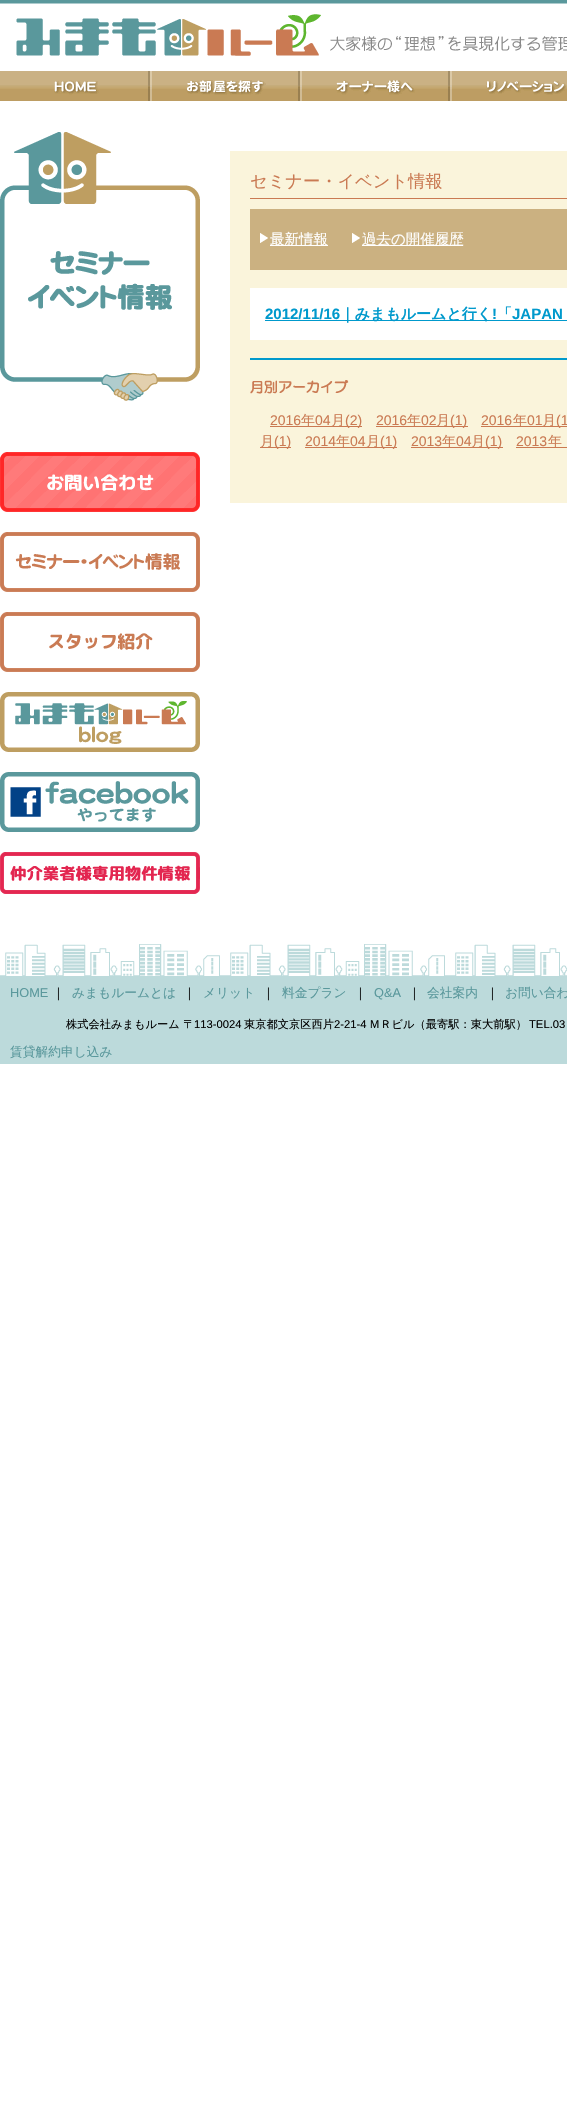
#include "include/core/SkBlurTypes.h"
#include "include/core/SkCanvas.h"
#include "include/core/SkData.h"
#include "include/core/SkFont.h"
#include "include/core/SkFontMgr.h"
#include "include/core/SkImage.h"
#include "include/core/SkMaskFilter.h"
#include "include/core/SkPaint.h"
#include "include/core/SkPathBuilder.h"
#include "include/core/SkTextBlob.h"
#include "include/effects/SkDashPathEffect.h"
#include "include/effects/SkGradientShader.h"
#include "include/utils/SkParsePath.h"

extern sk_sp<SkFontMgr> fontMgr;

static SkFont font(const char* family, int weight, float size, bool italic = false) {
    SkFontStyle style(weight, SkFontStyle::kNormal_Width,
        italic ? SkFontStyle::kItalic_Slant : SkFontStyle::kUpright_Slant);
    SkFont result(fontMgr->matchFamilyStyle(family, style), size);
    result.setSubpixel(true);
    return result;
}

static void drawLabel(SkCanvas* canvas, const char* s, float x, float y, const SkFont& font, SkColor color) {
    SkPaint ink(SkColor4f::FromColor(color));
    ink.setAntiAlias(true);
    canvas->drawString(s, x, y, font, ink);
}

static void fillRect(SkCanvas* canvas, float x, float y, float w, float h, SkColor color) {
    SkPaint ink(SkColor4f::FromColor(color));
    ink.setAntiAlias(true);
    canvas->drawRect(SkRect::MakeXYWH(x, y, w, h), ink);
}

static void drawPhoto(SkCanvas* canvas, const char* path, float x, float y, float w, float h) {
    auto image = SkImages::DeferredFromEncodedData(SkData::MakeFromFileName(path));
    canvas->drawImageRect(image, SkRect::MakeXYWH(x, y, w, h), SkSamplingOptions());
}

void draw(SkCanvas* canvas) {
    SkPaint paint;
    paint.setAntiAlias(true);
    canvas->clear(0xFFFFFFFF);
    drawPhoto(canvas, "assets/img1.png", 0, 0, 567, 56);
    drawPhoto(canvas, "assets/img2.png", 0, 71, 150, 30);
    drawPhoto(canvas, "assets/img3.png", 150, 71, 150, 30);
    drawPhoto(canvas, "assets/img4.png", 300, 71, 150, 30);
    drawPhoto(canvas, "assets/img5.png", 450, 71, 117, 30);
    drawPhoto(canvas, "assets/img6.png", 0, 132, 200, 269);
    drawPhoto(canvas, "assets/img7.png", 0, 452, 200, 60);
    drawPhoto(canvas, "assets/img8.png", 0, 532, 200, 60);
    drawPhoto(canvas, "assets/img9.png", 0, 612, 200, 60);
    drawPhoto(canvas, "assets/img10.png", 0, 692, 200, 60);
    drawPhoto(canvas, "assets/img11.png", 0, 772, 200, 60);
    drawPhoto(canvas, "assets/img12.png", 0, 852, 200, 42);
    fillRect(canvas, 230, 151, 337, 352, 0xFFFAF4DB);
    fillRect(canvas, 250, 198, 317, 1, 0xFFCA7A53);
    SkFont font1 = font("WenQuanYi Zen Hei", 500, 17.25f);
    drawLabel(canvas, "セミナー・イベント情報", 250, 187, font1, 0xFFCA7A53);
    fillRect(canvas, 250, 209, 317, 61, 0xFFCBB181);
    drawPhoto(canvas, "assets/img13.png", 260, 233, 8, 10);
    fillRect(canvas, 270, 245, 58, 1, 0xFFFFFFFF);
    SkFont font2 = font("WenQuanYi Zen Hei", 500, 14.5f);
    drawLabel(canvas, "最新情報", 270, 244, font2, 0xFFFFFFFF);
    drawPhoto(canvas, "assets/img13.png", 352, 233, 8, 10);
    fillRect(canvas, 362, 245, 101, 1, 0xFFFFFFFF);
    drawLabel(canvas, "過去の開催履歴", 362, 244, font2, 0xFFFFFFFF);
    fillRect(canvas, 250, 358, 317, 2, 0xFF0099CC);
    fillRect(canvas, 250, 288, 317, 52, 0xFFFFFFFF);
    SkFont font3 = font("Liberation Sans", 700, 15);
    drawLabel(canvas, "2012/11/16", 265, 319, font3, 0xFF0099CC);
    fillRect(canvas, 265, 320, 302, 1, 0xFF0099CC);
    SkFont font4 = font("WenQuanYi Zen Hei", 700, 15);
    drawLabel(canvas, "｜みまもルームと行く", 340, 319, font4, 0xFF0099CC);
    drawLabel(canvas, "!", 492, 319, font3, 0xFF0099CC);
    drawLabel(canvas, "「", 497, 319, font4, 0xFF0099CC);
    drawLabel(canvas, "JAPAN", 512, 319, font3, 0xFF0099CC);
    drawPhoto(canvas, "assets/img14.png", 250, 380, 99, 14);
    SkFont font5 = font("Liberation Sans", 400, 14);
    drawLabel(canvas, "2016", 270, 425, font5, 0xFFCA7A53);
    fillRect(canvas, 270, 426, 92, 1, 0xFFCA7952);
    SkFont font6 = font("WenQuanYi Zen Hei", 500, 14);
    drawLabel(canvas, "年", 301, 425, font6, 0xFFCA7A53);
    drawLabel(canvas, "04", 315, 425, font5, 0xFFCA7A53);
    drawLabel(canvas, "月", 331, 425, font6, 0xFFCA7A53);
    drawLabel(canvas, "(2)", 345, 425, font5, 0xFFCA7A53);
    drawLabel(canvas, "2016", 376, 425, font5, 0xFFCA7A53);
    fillRect(canvas, 376, 426, 92, 1, 0xFFCA7952);
    drawLabel(canvas, "年", 407, 425, font6, 0xFFCA7A53);
    drawLabel(canvas, "02", 421, 425, font5, 0xFFCA7A53);
    drawLabel(canvas, "月", 436, 425, font6, 0xFFCA7A53);
    drawLabel(canvas, "(1)", 450, 425, font5, 0xFFCA7A53);
    drawLabel(canvas, "2016", 481, 425, font5, 0xFFCA7A53);
    fillRect(canvas, 481, 426, 86, 1, 0xFFCA7952);
    drawLabel(canvas, "年", 513, 425, font6, 0xFFCA7A53);
    drawLabel(canvas, "01", 527, 425, font5, 0xFFCA7A53);
    drawLabel(canvas, "月", 542, 425, font6, 0xFFCA7A53);
    drawLabel(canvas, "(1", 556, 425, font5, 0xFFCA7A53);
    fillRect(canvas, 260, 447, 31, 1, 0xFFCA7952);
    drawLabel(canvas, "月", 260, 446, font6, 0xFFCA7A53);
    drawLabel(canvas, "(1)", 274, 446, font5, 0xFFCA7A53);
    drawLabel(canvas, "2014", 305, 446, font5, 0xFFCA7A53);
    fillRect(canvas, 305, 447, 92, 1, 0xFFCA7952);
    drawLabel(canvas, "年", 336, 446, font6, 0xFFCA7A53);
    drawLabel(canvas, "04", 350, 446, font5, 0xFFCA7A53);
    drawLabel(canvas, "月", 366, 446, font6, 0xFFCA7A53);
    drawLabel(canvas, "(1)", 380, 446, font5, 0xFFCA7A53);
    drawLabel(canvas, "2013", 411, 446, font5, 0xFFCA7A53);
    fillRect(canvas, 411, 447, 92, 1, 0xFFCA7952);
    drawLabel(canvas, "年", 442, 446, font6, 0xFFCA7A53);
    drawLabel(canvas, "04", 456, 446, font5, 0xFFCA7A53);
    drawLabel(canvas, "月", 471, 446, font6, 0xFFCA7A53);
    drawLabel(canvas, "(1)", 485, 446, font5, 0xFFCA7A53);
    drawLabel(canvas, "2013", 516, 446, font5, 0xFFCA7A53);
    fillRect(canvas, 516, 447, 51, 1, 0xFFCA7952);
    drawLabel(canvas, "年", 548, 446, font6, 0xFFCA7A53);
    drawPhoto(canvas, "assets/img15.png", 0, 944, 567, 120);
    SkFont font7 = font("Liberation Sans", 400, 12.75f);
    drawLabel(canvas, "HOME", 10, 997, font7, 0xFF5A989C);
    SkFont font8 = font("WenQuanYi Zen Hei", 500, 12.75f);
    drawLabel(canvas, "｜", 52, 997, font8, 0xFF000000);
    drawLabel(canvas, "みまもルームとは", 72, 997, font8, 0xFF5A989C);
    drawLabel(canvas, "｜", 183, 997, font8, 0xFF000000);
    drawLabel(canvas, "メリット", 203, 997, font8, 0xFF5A989C);
    drawLabel(canvas, "｜", 262, 997, font8, 0xFF000000);
    drawLabel(canvas, "料金プラン", 282, 997, font8, 0xFF5A989C);
    drawLabel(canvas, "｜", 354, 997, font8, 0xFF000000);
    drawLabel(canvas, "Q&A", 374, 997, font7, 0xFF5A989C);
    drawLabel(canvas, "｜", 408, 997, font8, 0xFF000000);
    drawLabel(canvas, "会社案内", 427, 997, font8, 0xFF5A989C);
    drawLabel(canvas, "｜", 486, 997, font8, 0xFF000000);
    drawLabel(canvas, "お問い合わ", 505, 997, font8, 0xFF5A989C);
    SkFont font9 = font("WenQuanYi Zen Hei", 500, 11.25f);
    drawLabel(canvas, "株式会社みまもルーム 〒", 66, 1028, font9, 0xFF000000);
    SkFont font10 = font("Liberation Sans", 400, 11.25f);
    drawLabel(canvas, "113-0024", 194, 1028, font10, 0xFF000000);
    drawLabel(canvas, "東京都文京区西片", 244, 1028, font9, 0xFF000000);
    drawLabel(canvas, "2-21-4", 334, 1028, font10, 0xFF000000);
    drawLabel(canvas, "ＭＲビル（最寄駅：東大前駅）", 369, 1028, font9, 0xFF000000);
    drawLabel(canvas, "TEL.03", 529, 1028, font10, 0xFF000000);
    drawLabel(canvas, "賃貸解約申し込み", 10, 1056, font8, 0xFF5A989C);
}
